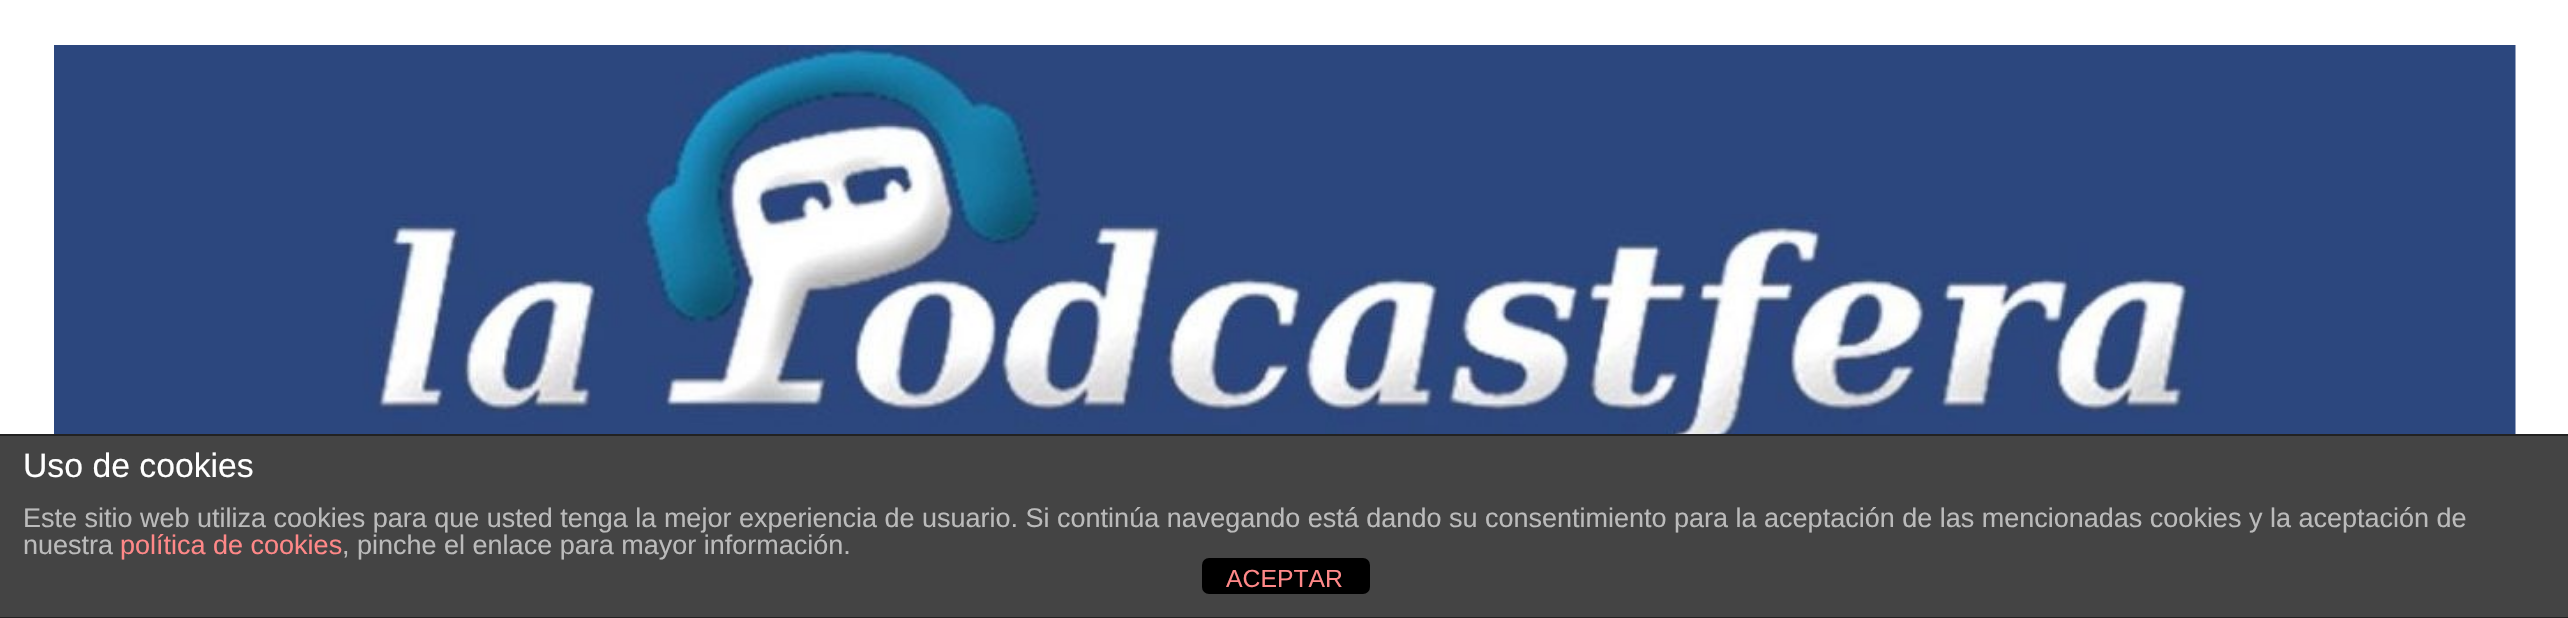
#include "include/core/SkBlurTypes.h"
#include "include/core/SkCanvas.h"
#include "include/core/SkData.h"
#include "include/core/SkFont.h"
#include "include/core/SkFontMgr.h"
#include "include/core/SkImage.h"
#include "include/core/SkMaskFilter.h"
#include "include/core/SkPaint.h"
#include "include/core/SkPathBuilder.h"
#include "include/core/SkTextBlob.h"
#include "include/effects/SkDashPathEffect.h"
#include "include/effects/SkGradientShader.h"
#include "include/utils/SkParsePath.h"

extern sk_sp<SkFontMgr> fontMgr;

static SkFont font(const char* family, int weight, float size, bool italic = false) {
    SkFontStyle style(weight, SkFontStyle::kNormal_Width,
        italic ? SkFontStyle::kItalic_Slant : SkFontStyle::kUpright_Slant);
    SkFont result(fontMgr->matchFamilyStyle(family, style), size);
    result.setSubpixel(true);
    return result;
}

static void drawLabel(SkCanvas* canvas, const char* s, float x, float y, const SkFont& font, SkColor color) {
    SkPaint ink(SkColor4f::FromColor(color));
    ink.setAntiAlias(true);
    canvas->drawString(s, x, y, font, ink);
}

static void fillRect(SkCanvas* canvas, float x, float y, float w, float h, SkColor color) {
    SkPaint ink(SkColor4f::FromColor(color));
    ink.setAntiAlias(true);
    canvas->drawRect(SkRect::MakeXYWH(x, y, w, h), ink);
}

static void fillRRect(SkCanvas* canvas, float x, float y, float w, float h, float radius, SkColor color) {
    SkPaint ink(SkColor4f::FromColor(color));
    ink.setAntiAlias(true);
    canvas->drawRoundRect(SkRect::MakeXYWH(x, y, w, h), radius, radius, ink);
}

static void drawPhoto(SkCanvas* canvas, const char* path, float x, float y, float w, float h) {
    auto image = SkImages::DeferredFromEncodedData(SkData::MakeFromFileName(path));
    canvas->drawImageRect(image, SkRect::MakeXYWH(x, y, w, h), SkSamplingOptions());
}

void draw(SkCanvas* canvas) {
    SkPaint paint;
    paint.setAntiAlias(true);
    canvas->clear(0xFFFFFFFF);
    drawPhoto(canvas, "assets/img1.png", 54, 45, 2462, 389);
    fillRect(canvas, 0, 436, 2568, 181, 0xFF444444);
    fillRect(canvas, 0, 434, 2568, 2, 0xFF222222);
    fillRect(canvas, 0, 617, 2568, 1, 0xFF222222);
    SkFont font1 = font("Liberation Sans", 400, 33.75f);
    drawLabel(canvas, "Uso de cookies", 23, 477, font1, 0xFFFFFFFF);
    SkFont font2 = font("Liberation Sans", 400, 27);
    drawLabel(canvas, "Este sitio web utiliza cookies para que usted tenga la mejor experiencia de usuario. Si continúa navegando está dando su consentimiento para la aceptación de las mencionadas cookies y la aceptación de", 23, 527, font2, 0xFFBBBBBB);
    drawLabel(canvas, "nuestra", 23, 554, font2, 0xFFBBBBBB);
    drawLabel(canvas, "política de cookies", 120, 554, font2, 0xFFFF8888);
    drawLabel(canvas, ", pinche el enlace para mayor información.", 342, 554, font2, 0xFFBBBBBB);
    fillRRect(canvas, 1202, 558, 168, 36, 7, 0xFF000000);
    SkFont font3 = font("Liberation Sans", 400, 24.75f);
    drawLabel(canvas, "ACEPTAR", 1226, 587, font3, 0xFFFF8888);
}
